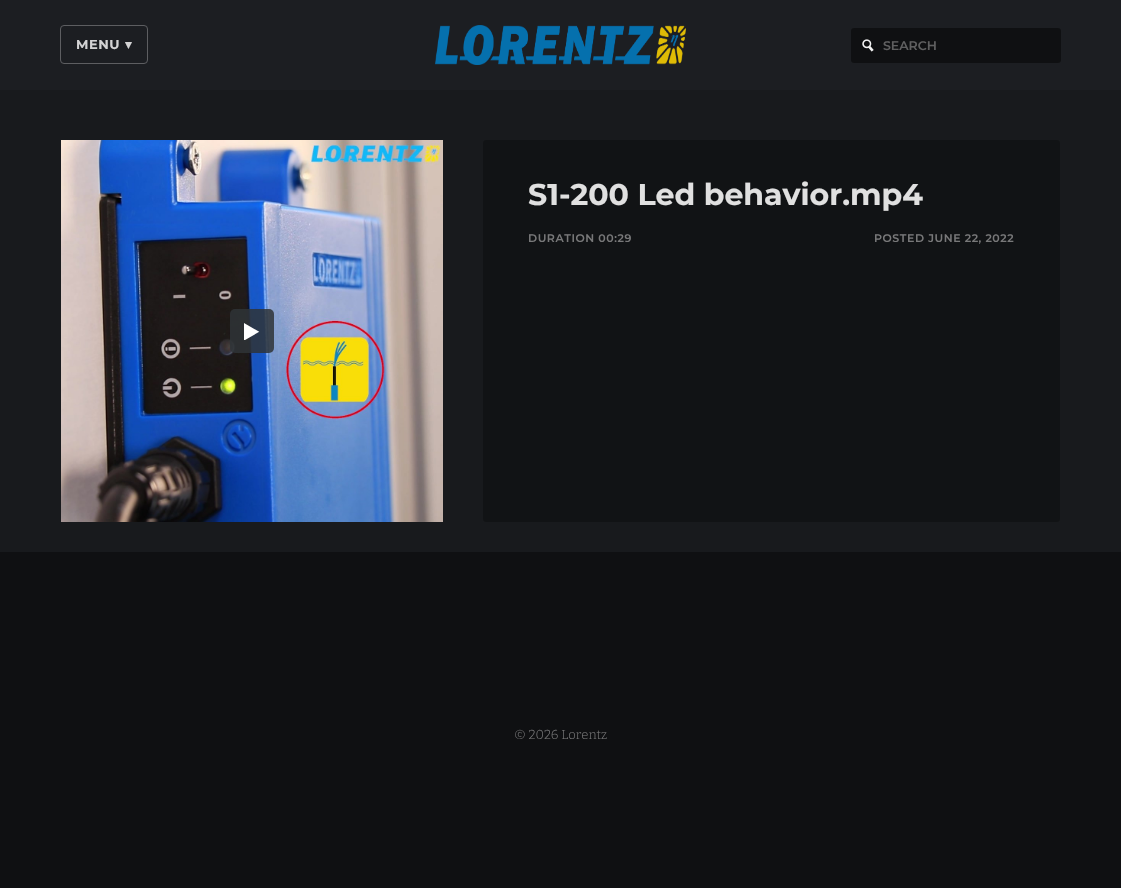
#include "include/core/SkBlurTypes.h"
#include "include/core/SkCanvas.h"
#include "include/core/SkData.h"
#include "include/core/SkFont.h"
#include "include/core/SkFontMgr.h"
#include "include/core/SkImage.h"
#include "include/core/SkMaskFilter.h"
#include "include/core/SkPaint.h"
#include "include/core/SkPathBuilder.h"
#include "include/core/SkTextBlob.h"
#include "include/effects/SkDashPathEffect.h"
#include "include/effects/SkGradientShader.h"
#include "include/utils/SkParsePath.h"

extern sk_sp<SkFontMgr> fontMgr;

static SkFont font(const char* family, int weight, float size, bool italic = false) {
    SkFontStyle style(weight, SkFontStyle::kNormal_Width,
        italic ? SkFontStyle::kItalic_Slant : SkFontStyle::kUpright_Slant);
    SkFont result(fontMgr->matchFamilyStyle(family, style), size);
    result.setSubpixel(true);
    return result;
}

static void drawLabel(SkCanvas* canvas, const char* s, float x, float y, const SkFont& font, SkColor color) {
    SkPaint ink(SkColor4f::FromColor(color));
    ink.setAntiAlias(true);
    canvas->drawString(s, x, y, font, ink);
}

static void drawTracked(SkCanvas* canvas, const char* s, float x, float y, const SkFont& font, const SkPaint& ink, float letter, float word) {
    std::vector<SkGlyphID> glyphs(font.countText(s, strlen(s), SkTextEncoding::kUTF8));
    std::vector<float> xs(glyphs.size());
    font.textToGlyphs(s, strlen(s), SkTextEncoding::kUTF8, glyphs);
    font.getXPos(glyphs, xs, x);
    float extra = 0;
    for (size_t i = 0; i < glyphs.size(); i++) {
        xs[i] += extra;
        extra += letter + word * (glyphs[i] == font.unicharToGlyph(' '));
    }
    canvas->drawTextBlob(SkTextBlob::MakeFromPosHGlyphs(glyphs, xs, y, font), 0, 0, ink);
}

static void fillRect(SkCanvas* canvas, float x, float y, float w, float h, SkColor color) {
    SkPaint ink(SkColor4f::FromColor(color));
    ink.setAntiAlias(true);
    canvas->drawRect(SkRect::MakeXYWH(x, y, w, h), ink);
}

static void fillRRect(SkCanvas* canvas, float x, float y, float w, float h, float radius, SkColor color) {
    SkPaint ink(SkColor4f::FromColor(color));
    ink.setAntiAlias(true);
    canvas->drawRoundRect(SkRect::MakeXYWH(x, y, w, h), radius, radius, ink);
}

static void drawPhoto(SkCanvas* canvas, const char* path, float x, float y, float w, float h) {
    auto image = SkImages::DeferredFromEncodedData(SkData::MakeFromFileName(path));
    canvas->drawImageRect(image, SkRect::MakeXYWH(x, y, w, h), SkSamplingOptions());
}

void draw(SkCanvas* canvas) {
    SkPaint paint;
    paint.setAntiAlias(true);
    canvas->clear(0xFF0F1012);
    fillRect(canvas, 0, 0, 1121, 90, 0xFF1C1E22);
    drawPhoto(canvas, "assets/img1.png", 435, 25, 251, 40);
    paint.setStroke(true);
    paint.setStrokeWidth(1);
    paint.setColor(0xFF5D5E61);
    canvas->drawRoundRect(SkRect::MakeXYWH(60.5f, 25.5f, 87, 38), 3.5f, 3.5f, paint);
    SkFont font1 = font("Montserrat", 700, 13);
    paint.setStroke(false);
    paint.setColor(0xFFD3D3D4);
    drawTracked(canvas, "MENU", 76, 49, font1, paint, 0.5f, 0);
    SkFont font2 = font("DejaVu Sans", 700, 13);
    drawTracked(canvas, "▾", 125, 49, font2, paint, 0.5f, 0);
    fillRRect(canvas, 851, 28, 210, 35, 3, 0xFF0F1012);
    drawPhoto(canvas, "assets/img2.png", 862, 39, 12, 13);
    SkFont font3 = font("Montserrat", 600, 12.5f);
    drawLabel(canvas, "SEARCH", 883, 50, font3, 0xFF5F5F60);
    fillRect(canvas, 0, 90, 1121, 462, 0xFF181A1D);
    drawPhoto(canvas, "assets/img3.png", 61, 140, 382, 382);
    fillRRect(canvas, 483, 140, 577, 382, 3, 0xFF111315);
    SkFont font4 = font("Montserrat", 700, 30);
    drawLabel(canvas, "S1-200 Led behavior.mp4", 528, 205, font4, 0xFFE0E0E0);
    SkFont font5 = font("Montserrat", 600, 11);
    paint.setColor(0xFF787879);
    drawTracked(canvas, "DURATION 00:29", 528, 242, font5, paint, 0.55f, 0);
    drawTracked(canvas, "POSTED JUNE 22, 2022", 874, 242, font5, paint, 0.55f, 0);
    SkFont font6 = font("Bitter", 300, 13);
    drawLabel(canvas, "© 2026 Lorentz", 514, 739, font6, 0xFF787879);
}
